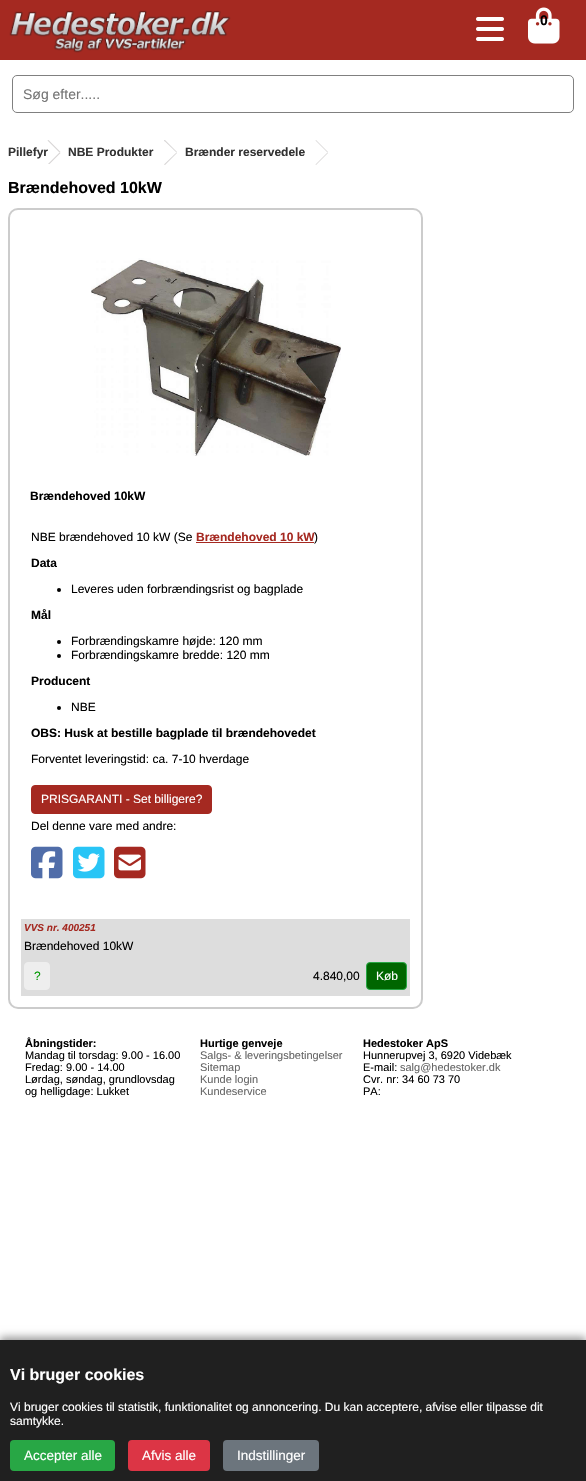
#include "include/core/SkBlurTypes.h"
#include "include/core/SkCanvas.h"
#include "include/core/SkData.h"
#include "include/core/SkFont.h"
#include "include/core/SkFontMgr.h"
#include "include/core/SkImage.h"
#include "include/core/SkMaskFilter.h"
#include "include/core/SkPaint.h"
#include "include/core/SkPathBuilder.h"
#include "include/core/SkTextBlob.h"
#include "include/effects/SkDashPathEffect.h"
#include "include/effects/SkGradientShader.h"
#include "include/utils/SkParsePath.h"

extern sk_sp<SkFontMgr> fontMgr;

static SkFont font(const char* family, int weight, float size, bool italic = false) {
    SkFontStyle style(weight, SkFontStyle::kNormal_Width,
        italic ? SkFontStyle::kItalic_Slant : SkFontStyle::kUpright_Slant);
    SkFont result(fontMgr->matchFamilyStyle(family, style), size);
    result.setSubpixel(true);
    return result;
}

static void drawLabel(SkCanvas* canvas, const char* s, float x, float y, const SkFont& font, SkColor color) {
    SkPaint ink(SkColor4f::FromColor(color));
    ink.setAntiAlias(true);
    canvas->drawString(s, x, y, font, ink);
}

static void fillRect(SkCanvas* canvas, float x, float y, float w, float h, SkColor color) {
    SkPaint ink(SkColor4f::FromColor(color));
    ink.setAntiAlias(true);
    canvas->drawRect(SkRect::MakeXYWH(x, y, w, h), ink);
}

static void fillRRect(SkCanvas* canvas, float x, float y, float w, float h, float radius, SkColor color) {
    SkPaint ink(SkColor4f::FromColor(color));
    ink.setAntiAlias(true);
    canvas->drawRoundRect(SkRect::MakeXYWH(x, y, w, h), radius, radius, ink);
}

static void drawPhoto(SkCanvas* canvas, const char* path, float x, float y, float w, float h) {
    auto image = SkImages::DeferredFromEncodedData(SkData::MakeFromFileName(path));
    canvas->drawImageRect(image, SkRect::MakeXYWH(x, y, w, h), SkSamplingOptions());
}

static SkPath parsePath(const char* data, bool evenOdd = false) {
    SkPath result = *SkParsePath::FromSVGString(data);
    if (evenOdd) result.setFillType(SkPathFillType::kEvenOdd);
    return result;
}

void draw(SkCanvas* canvas) {
    SkPaint paint;
    paint.setAntiAlias(true);
    canvas->clear(0xFFFFFFFF);
    fillRect(canvas, 0, 0, 586, 60, 0xFFA52921);
    drawPhoto(canvas, "assets/img1.png", 9, 10, 222, 43);
    drawPhoto(canvas, "assets/img2.png", 476, 17, 28, 24);
    drawPhoto(canvas, "assets/img3.png", 528, 7, 32, 37);
    SkFont font1 = font("Liberation Sans", 700, 14);
    drawLabel(canvas, "0", 540, 25, font1, 0xFF000000);
    paint.setStroke(true);
    paint.setStrokeWidth(1);
    paint.setColor(0xFF808080);
    canvas->drawRoundRect(SkRect::MakeXYWH(12.5f, 75.5f, 561, 37), 4.5f, 4.5f, paint);
    SkFont font2 = font("Liberation Sans", 400, 14);
    drawLabel(canvas, "Søg efter.....", 23, 99, font2, 0xFF757575);
    SkFont font3 = font("Liberation Sans", 700, 12);
    drawLabel(canvas, "Pillefyr", 8, 156, font3, 0xFF333333);
    paint.setStroke(false);
    paint.setColor(0xFFD6D4D4);
    canvas->drawPath(parsePath("M48.5 140L60.5 152L59.5 152.5L47.5 140.5Z"), paint);
    canvas->save();
    canvas->clipRect(SkRect::MakeXYWH(8, 140, 415, 24));
    canvas->drawPath(parsePath("M59.5 152.5L60.5 153L48.5 165L47.5 164.5Z"), paint);
    canvas->restore();
    drawLabel(canvas, "NBE Produkter", 68, 156, font3, 0xFF333333);
    canvas->drawPath(parsePath("M164.5 140L176.5 152L176 152.5L164 140.5Z"), paint);
    fillRect(canvas, 165, 140, 12, 13, 0xFFFFFFFF);
    canvas->drawPath(parsePath("M165 140L177 152L176.5 152.5L164 140.5Z"), paint);
    canvas->drawPath(parsePath("M176.5 152.5L177 153L165 165L164 164.5Z"), paint);
    drawLabel(canvas, "Brænder reservedele", 185, 156, font3, 0xFF333333);
    canvas->drawPath(parsePath("M316 140L328 152L327.5 152.5L315.5 140.5Z"), paint);
    canvas->drawPath(parsePath("M327.5 152.5L328 153L316 165L315.5 164.5Z"), paint);
    SkFont font4 = font("Liberation Sans", 700, 16);
    drawLabel(canvas, "Brændehoved 10kW", 8, 193, font4, 0xFF000000);
    paint.setStroke(true);
    paint.setStrokeWidth(2);
    paint.setColor(0xFFCCCCCC);
    canvas->drawRoundRect(SkRect::MakeXYWH(9, 209, 413, 799), 9, 9, paint);
    drawPhoto(canvas, "assets/img4.png", 91, 258, 250, 198);
    drawLabel(canvas, "Brændehoved 10kW", 30, 500, font3, 0xFF000000);
    SkFont font5 = font("Liberation Sans", 400, 12);
    drawLabel(canvas, "NBE brændehoved 10 kW (Se", 31, 541, font5, 0xFF000000);
    drawLabel(canvas, "Brændehoved 10 kW", 196, 541, font3, 0xFFA52921);
    fillRect(canvas, 196, 542, 118, 1, 0xFFA52921);
    drawLabel(canvas, ")", 314, 541, font5, 0xFF000000);
    drawLabel(canvas, "Data", 31, 567, font3, 0xFF000000);
    paint.setStroke(false);
    paint.setColor(0xFF000000);
    canvas->drawCircle(59, 590, 2, paint);
    drawLabel(canvas, "Leveres uden forbrændingsrist og bagplade", 71, 593, font5, 0xFF000000);
    drawLabel(canvas, "Mål", 31, 619, font3, 0xFF000000);
    canvas->drawCircle(59, 642, 2, paint);
    drawLabel(canvas, "Forbrændingskamre højde: 120 mm", 71, 645, font5, 0xFF000000);
    canvas->drawCircle(59, 656, 2, paint);
    drawLabel(canvas, "Forbrændingskamre bredde: 120 mm", 71, 659, font5, 0xFF000000);
    drawLabel(canvas, "Producent", 31, 685, font3, 0xFF000000);
    canvas->drawCircle(59, 708, 2, paint);
    drawLabel(canvas, "NBE", 71, 711, font5, 0xFF000000);
    drawLabel(canvas, "OBS: Husk at bestille bagplade til brændehovedet", 31, 737, font3, 0xFF000000);
    drawLabel(canvas, "Forventet leveringstid: ca. 7-10 hverdage", 31, 763, font5, 0xFF000000);
    paint.setColor(0xFFA52921);
    canvas->drawRoundRect(SkRect::MakeXYWH(31.5f, 785.5f, 180, 28), 3.5f, 3.5f, paint);
    paint.setStroke(true);
    paint.setStrokeWidth(1);
    canvas->drawRoundRect(SkRect::MakeXYWH(31.5f, 785.5f, 180, 28), 3.5f, 3.5f, paint);
    drawLabel(canvas, "PRISGARANTI - Set billigere?", 41, 803, font5, 0xFFFFFFFF);
    drawLabel(canvas, "Del denne vare med andre:", 31, 830, font5, 0xFF000000);
    drawPhoto(canvas, "assets/img5.png", 31, 846, 32, 33);
    drawPhoto(canvas, "assets/img6.png", 73, 846, 32, 33);
    drawPhoto(canvas, "assets/img7.png", 114, 846, 32, 33);
    fillRect(canvas, 21, 919, 389, 37, 0xFFDDDDDD);
    SkFont font6 = font("Liberation Sans", 700, 10, true);
    drawLabel(canvas, "VVS nr. 400251", 24, 931, font6, 0xFFA52921);
    drawLabel(canvas, "Brændehoved 10kW", 24, 950, font5, 0xFF000000);
    fillRect(canvas, 21, 956, 389, 40, 0xFFDDDDDD);
    paint.setStroke(false);
    paint.setColor(0xFFEEEEEE);
    canvas->drawRoundRect(SkRect::MakeXYWH(24.5f, 962.5f, 25, 27), 3.5f, 3.5f, paint);
    paint.setStroke(true);
    canvas->drawRoundRect(SkRect::MakeXYWH(24.5f, 962.5f, 25, 27), 3.5f, 3.5f, paint);
    drawLabel(canvas, "?", 34, 980, font5, 0xFF009900);
    drawLabel(canvas, "4.840,00", 313, 980, font5, 0xFF000000);
    paint.setStroke(false);
    paint.setColor(0xFF006600);
    canvas->drawRoundRect(SkRect::MakeXYWH(366.5f, 962.5f, 40, 27), 3.5f, 3.5f, paint);
    paint.setStroke(true);
    paint.setColor(0xFF28A745);
    canvas->drawRoundRect(SkRect::MakeXYWH(366.5f, 962.5f, 40, 27), 3.5f, 3.5f, paint);
    drawLabel(canvas, "Køb", 376, 980, font5, 0xFFFFFFFF);
    SkFont font7 = font("Liberation Sans", 700, 11);
    drawLabel(canvas, "Åbningstider:", 25, 1047, font7, 0xFF000000);
    SkFont font8 = font("Liberation Sans", 400, 11);
    drawLabel(canvas, "Mandag til torsdag: 9.00 - 16.00", 25, 1059, font8, 0xFF000000);
    drawLabel(canvas, "Fredag: 9.00 - 14.00", 25, 1071, font8, 0xFF000000);
    drawLabel(canvas, "Lørdag, søndag, grundlovsdag", 25, 1083, font8, 0xFF000000);
    drawLabel(canvas, "og helligdage: Lukket", 25, 1095, font8, 0xFF000000);
    drawLabel(canvas, "Hurtige genveje", 200, 1047, font7, 0xFF000000);
    drawLabel(canvas, "Salgs- & leveringsbetingelser", 200, 1059, font8, 0xFF666666);
    drawLabel(canvas, "Sitemap", 200, 1071, font8, 0xFF666666);
    drawLabel(canvas, "Kunde login", 200, 1083, font8, 0xFF666666);
    drawLabel(canvas, "Kundeservice", 200, 1095, font8, 0xFF666666);
    drawLabel(canvas, "Hedestoker ApS", 363, 1047, font7, 0xFF000000);
    drawLabel(canvas, "Hunnerupvej 3, 6920 Videbæk", 363, 1059, font8, 0xFF000000);
    drawLabel(canvas, "E-mail:", 363, 1071, font8, 0xFF000000);
    drawLabel(canvas, "salg@hedestoker.dk", 400, 1071, font8, 0xFF666666);
    drawLabel(canvas, "Cvr. nr: 34 60 73 70", 363, 1083, font8, 0xFF000000);
    drawLabel(canvas, "PA:", 363, 1095, font8, 0xFF000000);
    paint.setStroke(false);
    paint.setColor(0x66000000);
    paint.setMaskFilter(SkMaskFilter::MakeBlur(kNormal_SkBlurStyle, 4));
    canvas->drawRect(SkRect::MakeXYWH(0, 1337, 586, 141), paint);
    paint.setMaskFilter(nullptr);
    fillRect(canvas, 0, 1340, 586, 141, 0xFF202020);
    drawLabel(canvas, "Vi bruger cookies", 10, 1380, font4, 0xFFFFFFFF);
    drawLabel(canvas, "Vi bruger cookies til statistik, funktionalitet og annoncering. Du kan acceptere, afvise eller tilpasse dit", 10, 1411, font5, 0xFFFFFFFF);
    drawLabel(canvas, "samtykke.", 10, 1425, font5, 0xFFFFFFFF);
    fillRRect(canvas, 10, 1440, 105, 31, 4, 0xFF28A745);
    SkFont font9 = font("Liberation Sans", 400, 13.5f);
    drawLabel(canvas, "Accepter alle", 24, 1460, font9, 0xFFFFFFFF);
    fillRRect(canvas, 128, 1440, 82, 31, 4, 0xFFDC3545);
    drawLabel(canvas, "Afvis alle", 142, 1460, font9, 0xFFFFFFFF);
    fillRRect(canvas, 223, 1440, 96, 31, 4, 0xFF6C757D);
    drawLabel(canvas, "Indstillinger", 237, 1460, font9, 0xFFFFFFFF);
}
